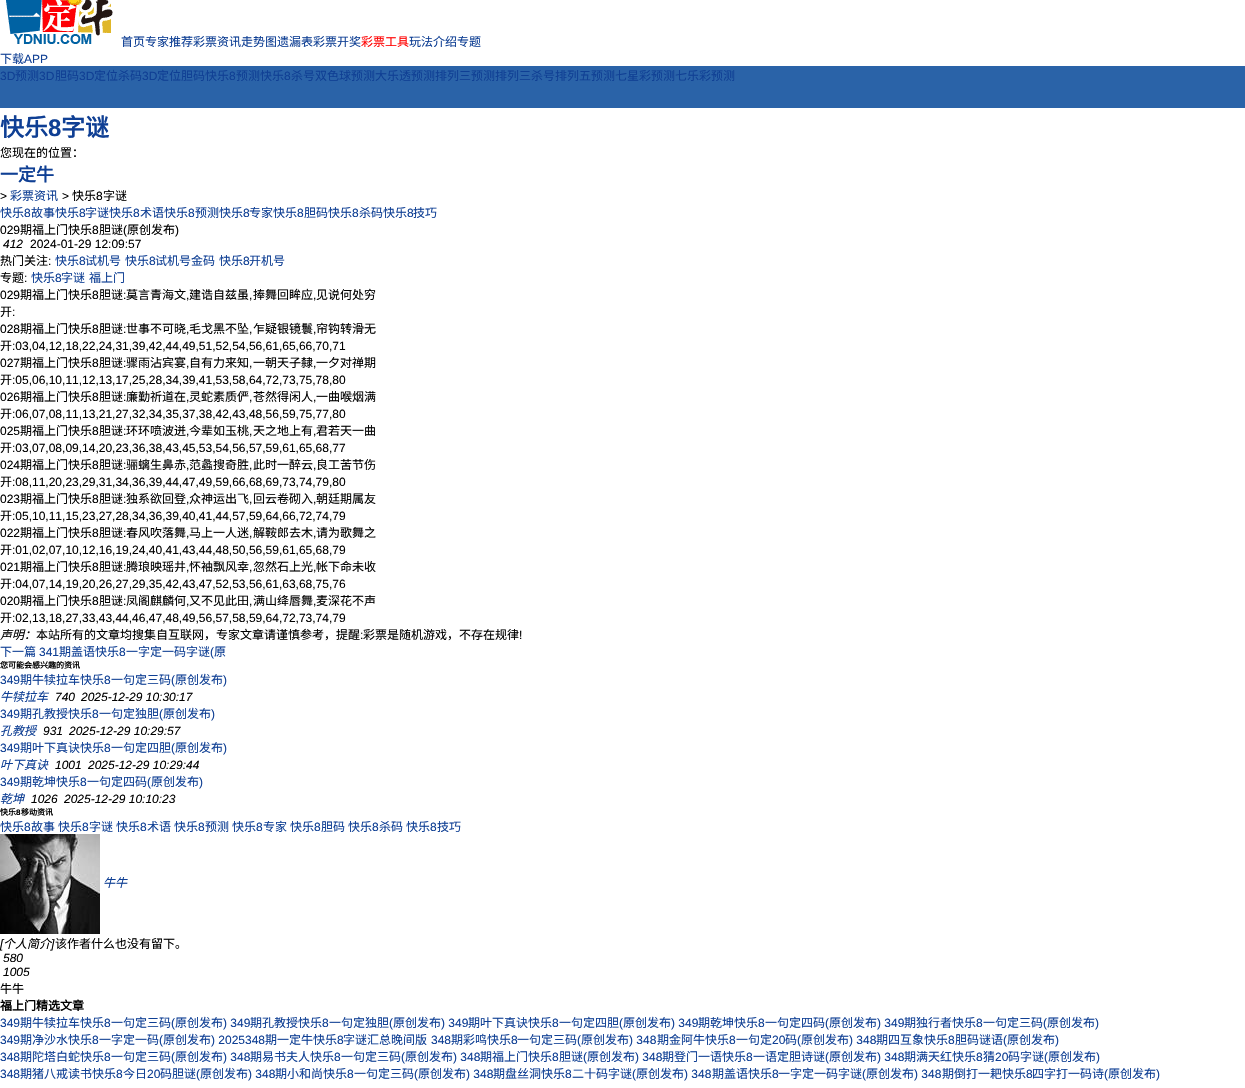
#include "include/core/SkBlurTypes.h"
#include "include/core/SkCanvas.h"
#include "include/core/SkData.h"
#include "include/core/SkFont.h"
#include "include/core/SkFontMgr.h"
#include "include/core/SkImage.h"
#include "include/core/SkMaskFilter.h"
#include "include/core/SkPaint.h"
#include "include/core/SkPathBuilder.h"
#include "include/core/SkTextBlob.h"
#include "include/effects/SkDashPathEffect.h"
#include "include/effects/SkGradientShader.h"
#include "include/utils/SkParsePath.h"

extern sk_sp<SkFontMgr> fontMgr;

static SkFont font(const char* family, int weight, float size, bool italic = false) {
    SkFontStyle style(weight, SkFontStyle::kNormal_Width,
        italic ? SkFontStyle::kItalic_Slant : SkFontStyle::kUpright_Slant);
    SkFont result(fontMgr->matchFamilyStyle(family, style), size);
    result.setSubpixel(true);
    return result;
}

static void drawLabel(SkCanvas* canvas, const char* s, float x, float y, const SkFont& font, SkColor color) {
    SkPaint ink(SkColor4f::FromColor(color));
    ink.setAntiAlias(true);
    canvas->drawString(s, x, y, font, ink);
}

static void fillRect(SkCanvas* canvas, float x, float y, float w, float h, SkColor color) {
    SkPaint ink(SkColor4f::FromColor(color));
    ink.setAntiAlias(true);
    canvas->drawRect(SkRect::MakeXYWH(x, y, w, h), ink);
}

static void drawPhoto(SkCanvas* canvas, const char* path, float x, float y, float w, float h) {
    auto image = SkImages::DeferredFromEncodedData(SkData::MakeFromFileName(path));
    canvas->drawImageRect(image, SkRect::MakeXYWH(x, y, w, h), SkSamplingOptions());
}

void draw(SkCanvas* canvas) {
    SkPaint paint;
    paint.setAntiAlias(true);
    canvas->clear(0xFFFFFFFF);
    drawPhoto(canvas, "assets/img1.png", 6, 0, 107, 44);
    SkFont font1 = font("Noto Sans CJK SC", 400, 12);
    drawLabel(canvas, "首页专家推荐彩票资讯走势图遗漏表彩票开奖", 121, 46, font1, 0xFF0F3F94);
    drawLabel(canvas, "彩票工具", 361, 46, font1, 0xFFFF0000);
    drawLabel(canvas, "玩法介绍专题", 409, 46, font1, 0xFF0F3F94);
    drawLabel(canvas, "下载", 0, 63, font1, 0xFF0F3F94);
    SkFont font2 = font("Liberation Sans", 400, 12);
    drawLabel(canvas, "APP", 24, 63, font2, 0xFF0F3F94);
    fillRect(canvas, 0, 66, 1245, 42, 0xFF2A63A8);
    drawLabel(canvas, "3D", 0, 80, font2, 0xFF0F3F94);
    drawLabel(canvas, "预测", 15, 80, font1, 0xFF0F3F94);
    drawLabel(canvas, "3D", 39, 80, font2, 0xFF0F3F94);
    drawLabel(canvas, "胆码", 55, 80, font1, 0xFF0F3F94);
    drawLabel(canvas, "3D", 79, 80, font2, 0xFF0F3F94);
    drawLabel(canvas, "定位杀码", 94, 80, font1, 0xFF0F3F94);
    drawLabel(canvas, "3D", 142, 80, font2, 0xFF0F3F94);
    drawLabel(canvas, "定位胆码快乐", 157, 80, font1, 0xFF0F3F94);
    drawLabel(canvas, "8", 229, 80, font2, 0xFF0F3F94);
    drawLabel(canvas, "预测快乐", 236, 80, font1, 0xFF0F3F94);
    drawLabel(canvas, "8", 284, 80, font2, 0xFF0F3F94);
    drawLabel(canvas, "杀号双色球预测大乐透预测排列三预测排列三杀号排列五预测七星彩预测七乐彩预测", 291, 80, font1, 0xFF0F3F94);
    SkFont font3 = font("Noto Sans CJK SC", 700, 24);
    drawLabel(canvas, "快乐", 0, 136, font3, 0xFF0F3F94);
    SkFont font4 = font("Liberation Sans", 700, 24);
    drawLabel(canvas, "8", 48, 136, font4, 0xFF0F3F94);
    drawLabel(canvas, "字谜", 61, 136, font3, 0xFF0F3F94);
    drawLabel(canvas, "您现在的位置：", 0, 157, font1, 0xFF000000);
    SkFont font5 = font("Noto Sans CJK SC", 700, 18);
    drawLabel(canvas, "一定牛", 0, 181, font5, 0xFF0F3F94);
    drawLabel(canvas, ">", 0, 200, font2, 0xFF000000);
    drawLabel(canvas, "彩票资讯", 10, 200, font1, 0xFF0F3F94);
    drawLabel(canvas, ">", 62, 200, font2, 0xFF000000);
    drawLabel(canvas, "快乐", 72, 200, font1, 0xFF000000);
    drawLabel(canvas, "8", 96, 200, font2, 0xFF000000);
    drawLabel(canvas, "字谜", 103, 200, font1, 0xFF000000);
    drawLabel(canvas, "快乐", 0, 217, font1, 0xFF0F3F94);
    drawLabel(canvas, "8", 24, 217, font2, 0xFF0F3F94);
    drawLabel(canvas, "故事快乐", 31, 217, font1, 0xFF0F3F94);
    drawLabel(canvas, "8", 79, 217, font2, 0xFF0F3F94);
    drawLabel(canvas, "字谜快乐", 85, 217, font1, 0xFF0F3F94);
    drawLabel(canvas, "8", 133, 217, font2, 0xFF0F3F94);
    drawLabel(canvas, "术语快乐", 140, 217, font1, 0xFF0F3F94);
    drawLabel(canvas, "8", 188, 217, font2, 0xFF0F3F94);
    drawLabel(canvas, "预测快乐", 195, 217, font1, 0xFF0F3F94);
    drawLabel(canvas, "8", 243, 217, font2, 0xFF0F3F94);
    drawLabel(canvas, "专家快乐", 249, 217, font1, 0xFF0F3F94);
    drawLabel(canvas, "8", 297, 217, font2, 0xFF0F3F94);
    drawLabel(canvas, "胆码快乐", 304, 217, font1, 0xFF0F3F94);
    drawLabel(canvas, "8", 352, 217, font2, 0xFF0F3F94);
    drawLabel(canvas, "杀码快乐", 359, 217, font1, 0xFF0F3F94);
    drawLabel(canvas, "8", 407, 217, font2, 0xFF0F3F94);
    drawLabel(canvas, "技巧", 413, 217, font1, 0xFF0F3F94);
    drawLabel(canvas, "029", 0, 234, font2, 0xFF000000);
    drawLabel(canvas, "期福上门快乐", 20, 234, font1, 0xFF000000);
    drawLabel(canvas, "8", 92, 234, font2, 0xFF000000);
    drawLabel(canvas, "胆谜", 99, 234, font1, 0xFF000000);
    drawLabel(canvas, "(", 123, 234, font2, 0xFF000000);
    drawLabel(canvas, "原创发布", 127, 234, font1, 0xFF000000);
    drawLabel(canvas, ")", 175, 234, font2, 0xFF000000);
    SkFont font6 = font("Liberation Sans", 400, 12, true);
    drawLabel(canvas, "412", 3, 248, font6, 0xFF000000);
    drawLabel(canvas, "2024-01-29 12:09:57", 30, 248, font2, 0xFF000000);
    drawLabel(canvas, "热门关注", 0, 265, font1, 0xFF000000);
    drawLabel(canvas, ":", 48, 265, font2, 0xFF000000);
    drawLabel(canvas, "快乐", 55, 265, font1, 0xFF0F3F94);
    drawLabel(canvas, "8", 79, 265, font2, 0xFF0F3F94);
    drawLabel(canvas, "试机号", 85, 265, font1, 0xFF0F3F94);
    drawLabel(canvas, "快乐", 125, 265, font1, 0xFF0F3F94);
    drawLabel(canvas, "8", 149, 265, font2, 0xFF0F3F94);
    drawLabel(canvas, "试机号金码", 155, 265, font1, 0xFF0F3F94);
    drawLabel(canvas, "快乐", 219, 265, font1, 0xFF0F3F94);
    drawLabel(canvas, "8", 243, 265, font2, 0xFF0F3F94);
    drawLabel(canvas, "开机号", 249, 265, font1, 0xFF0F3F94);
    drawLabel(canvas, "专题", 0, 282, font1, 0xFF000000);
    drawLabel(canvas, ":", 24, 282, font2, 0xFF000000);
    drawLabel(canvas, "快乐", 31, 282, font1, 0xFF0F3F94);
    drawLabel(canvas, "8", 55, 282, font2, 0xFF0F3F94);
    drawLabel(canvas, "字谜", 61, 282, font1, 0xFF0F3F94);
    drawLabel(canvas, "福上门", 89, 282, font1, 0xFF0F3F94);
    drawLabel(canvas, "029", 0, 299, font2, 0xFF000000);
    drawLabel(canvas, "期福上门快乐", 20, 299, font1, 0xFF000000);
    drawLabel(canvas, "8", 92, 299, font2, 0xFF000000);
    drawLabel(canvas, "胆谜", 99, 299, font1, 0xFF000000);
    drawLabel(canvas, ":", 123, 299, font2, 0xFF000000);
    drawLabel(canvas, "莫言青海文", 126, 299, font1, 0xFF000000);
    drawLabel(canvas, ",", 186, 299, font2, 0xFF000000);
    drawLabel(canvas, "建诰自兹虽", 189, 299, font1, 0xFF000000);
    drawLabel(canvas, ",", 249, 299, font2, 0xFF000000);
    drawLabel(canvas, "捧舞回眸应", 253, 299, font1, 0xFF000000);
    drawLabel(canvas, ",", 313, 299, font2, 0xFF000000);
    drawLabel(canvas, "见说何处穷", 316, 299, font1, 0xFF000000);
    drawLabel(canvas, "开", 0, 316, font1, 0xFF000000);
    drawLabel(canvas, ":", 12, 316, font2, 0xFF000000);
    drawLabel(canvas, "028", 0, 333, font2, 0xFF000000);
    drawLabel(canvas, "期福上门快乐", 20, 333, font1, 0xFF000000);
    drawLabel(canvas, "8", 92, 333, font2, 0xFF000000);
    drawLabel(canvas, "胆谜", 99, 333, font1, 0xFF000000);
    drawLabel(canvas, ":", 123, 333, font2, 0xFF000000);
    drawLabel(canvas, "世事不可晓", 126, 333, font1, 0xFF000000);
    drawLabel(canvas, ",", 186, 333, font2, 0xFF000000);
    drawLabel(canvas, "毛戈黑不坠", 189, 333, font1, 0xFF000000);
    drawLabel(canvas, ",", 249, 333, font2, 0xFF000000);
    drawLabel(canvas, "乍疑银镜鬟", 253, 333, font1, 0xFF000000);
    drawLabel(canvas, ",", 313, 333, font2, 0xFF000000);
    drawLabel(canvas, "帘钩转滑无", 316, 333, font1, 0xFF000000);
    drawLabel(canvas, "开", 0, 350, font1, 0xFF000000);
    drawLabel(canvas, ":03,04,12,18,22,24,31,39,42,44,49,51,52,54,56,61,65,66,70,71", 12, 350, font2, 0xFF000000);
    drawLabel(canvas, "027", 0, 367, font2, 0xFF000000);
    drawLabel(canvas, "期福上门快乐", 20, 367, font1, 0xFF000000);
    drawLabel(canvas, "8", 92, 367, font2, 0xFF000000);
    drawLabel(canvas, "胆谜", 99, 367, font1, 0xFF000000);
    drawLabel(canvas, ":", 123, 367, font2, 0xFF000000);
    drawLabel(canvas, "骤雨沾宾宴", 126, 367, font1, 0xFF000000);
    drawLabel(canvas, ",", 186, 367, font2, 0xFF000000);
    drawLabel(canvas, "自有力来知", 189, 367, font1, 0xFF000000);
    drawLabel(canvas, ",", 249, 367, font2, 0xFF000000);
    drawLabel(canvas, "一朝天子隸", 253, 367, font1, 0xFF000000);
    drawLabel(canvas, ",", 313, 367, font2, 0xFF000000);
    drawLabel(canvas, "一夕对禅期", 316, 367, font1, 0xFF000000);
    drawLabel(canvas, "开", 0, 384, font1, 0xFF000000);
    drawLabel(canvas, ":05,06,10,11,12,13,17,25,28,34,39,41,53,58,64,72,73,75,78,80", 12, 384, font2, 0xFF000000);
    drawLabel(canvas, "026", 0, 401, font2, 0xFF000000);
    drawLabel(canvas, "期福上门快乐", 20, 401, font1, 0xFF000000);
    drawLabel(canvas, "8", 92, 401, font2, 0xFF000000);
    drawLabel(canvas, "胆谜", 99, 401, font1, 0xFF000000);
    drawLabel(canvas, ":", 123, 401, font2, 0xFF000000);
    drawLabel(canvas, "廉勤祈道在", 126, 401, font1, 0xFF000000);
    drawLabel(canvas, ",", 186, 401, font2, 0xFF000000);
    drawLabel(canvas, "灵蛇素质俨", 189, 401, font1, 0xFF000000);
    drawLabel(canvas, ",", 249, 401, font2, 0xFF000000);
    drawLabel(canvas, "苍然得闲人", 253, 401, font1, 0xFF000000);
    drawLabel(canvas, ",", 313, 401, font2, 0xFF000000);
    drawLabel(canvas, "一曲喉烟满", 316, 401, font1, 0xFF000000);
    drawLabel(canvas, "开", 0, 418, font1, 0xFF000000);
    drawLabel(canvas, ":06,07,08,11,13,21,27,32,34,35,37,38,42,43,48,56,59,75,77,80", 12, 418, font2, 0xFF000000);
    drawLabel(canvas, "025", 0, 435, font2, 0xFF000000);
    drawLabel(canvas, "期福上门快乐", 20, 435, font1, 0xFF000000);
    drawLabel(canvas, "8", 92, 435, font2, 0xFF000000);
    drawLabel(canvas, "胆谜", 99, 435, font1, 0xFF000000);
    drawLabel(canvas, ":", 123, 435, font2, 0xFF000000);
    drawLabel(canvas, "环环喷波迸", 126, 435, font1, 0xFF000000);
    drawLabel(canvas, ",", 186, 435, font2, 0xFF000000);
    drawLabel(canvas, "今辈如玉桃", 189, 435, font1, 0xFF000000);
    drawLabel(canvas, ",", 249, 435, font2, 0xFF000000);
    drawLabel(canvas, "天之地上有", 253, 435, font1, 0xFF000000);
    drawLabel(canvas, ",", 313, 435, font2, 0xFF000000);
    drawLabel(canvas, "君若天一曲", 316, 435, font1, 0xFF000000);
    drawLabel(canvas, "开", 0, 452, font1, 0xFF000000);
    drawLabel(canvas, ":03,07,08,09,14,20,23,36,38,43,45,53,54,56,57,59,61,65,68,77", 12, 452, font2, 0xFF000000);
    drawLabel(canvas, "024", 0, 469, font2, 0xFF000000);
    drawLabel(canvas, "期福上门快乐", 20, 469, font1, 0xFF000000);
    drawLabel(canvas, "8", 92, 469, font2, 0xFF000000);
    drawLabel(canvas, "胆谜", 99, 469, font1, 0xFF000000);
    drawLabel(canvas, ":", 123, 469, font2, 0xFF000000);
    drawLabel(canvas, "骊螭生鼻赤", 126, 469, font1, 0xFF000000);
    drawLabel(canvas, ",", 186, 469, font2, 0xFF000000);
    drawLabel(canvas, "范蠡搜奇胜", 189, 469, font1, 0xFF000000);
    drawLabel(canvas, ",", 249, 469, font2, 0xFF000000);
    drawLabel(canvas, "此时一醉云", 253, 469, font1, 0xFF000000);
    drawLabel(canvas, ",", 313, 469, font2, 0xFF000000);
    drawLabel(canvas, "良工苦节伤", 316, 469, font1, 0xFF000000);
    drawLabel(canvas, "开", 0, 486, font1, 0xFF000000);
    drawLabel(canvas, ":08,11,20,23,29,31,34,36,39,44,47,49,59,66,68,69,73,74,79,80", 12, 486, font2, 0xFF000000);
    drawLabel(canvas, "023", 0, 503, font2, 0xFF000000);
    drawLabel(canvas, "期福上门快乐", 20, 503, font1, 0xFF000000);
    drawLabel(canvas, "8", 92, 503, font2, 0xFF000000);
    drawLabel(canvas, "胆谜", 99, 503, font1, 0xFF000000);
    drawLabel(canvas, ":", 123, 503, font2, 0xFF000000);
    drawLabel(canvas, "独系欲回登", 126, 503, font1, 0xFF000000);
    drawLabel(canvas, ",", 186, 503, font2, 0xFF000000);
    drawLabel(canvas, "众神运出飞", 189, 503, font1, 0xFF000000);
    drawLabel(canvas, ",", 249, 503, font2, 0xFF000000);
    drawLabel(canvas, "回云卷砌入", 253, 503, font1, 0xFF000000);
    drawLabel(canvas, ",", 313, 503, font2, 0xFF000000);
    drawLabel(canvas, "朝廷期属友", 316, 503, font1, 0xFF000000);
    drawLabel(canvas, "开", 0, 520, font1, 0xFF000000);
    drawLabel(canvas, ":05,10,11,15,23,27,28,34,36,39,40,41,44,57,59,64,66,72,74,79", 12, 520, font2, 0xFF000000);
    drawLabel(canvas, "022", 0, 537, font2, 0xFF000000);
    drawLabel(canvas, "期福上门快乐", 20, 537, font1, 0xFF000000);
    drawLabel(canvas, "8", 92, 537, font2, 0xFF000000);
    drawLabel(canvas, "胆谜", 99, 537, font1, 0xFF000000);
    drawLabel(canvas, ":", 123, 537, font2, 0xFF000000);
    drawLabel(canvas, "春风吹落舞", 126, 537, font1, 0xFF000000);
    drawLabel(canvas, ",", 186, 537, font2, 0xFF000000);
    drawLabel(canvas, "马上一人迷", 189, 537, font1, 0xFF000000);
    drawLabel(canvas, ",", 249, 537, font2, 0xFF000000);
    drawLabel(canvas, "解鞍郎去木", 253, 537, font1, 0xFF000000);
    drawLabel(canvas, ",", 313, 537, font2, 0xFF000000);
    drawLabel(canvas, "请为歌舞之", 316, 537, font1, 0xFF000000);
    drawLabel(canvas, "开", 0, 554, font1, 0xFF000000);
    drawLabel(canvas, ":01,02,07,10,12,16,19,24,40,41,43,44,48,50,56,59,61,65,68,79", 12, 554, font2, 0xFF000000);
    drawLabel(canvas, "021", 0, 571, font2, 0xFF000000);
    drawLabel(canvas, "期福上门快乐", 20, 571, font1, 0xFF000000);
    drawLabel(canvas, "8", 92, 571, font2, 0xFF000000);
    drawLabel(canvas, "胆谜", 99, 571, font1, 0xFF000000);
    drawLabel(canvas, ":", 123, 571, font2, 0xFF000000);
    drawLabel(canvas, "腾琅映瑶井", 126, 571, font1, 0xFF000000);
    drawLabel(canvas, ",", 186, 571, font2, 0xFF000000);
    drawLabel(canvas, "怀袖飘风幸", 189, 571, font1, 0xFF000000);
    drawLabel(canvas, ",", 249, 571, font2, 0xFF000000);
    drawLabel(canvas, "忽然石上光", 253, 571, font1, 0xFF000000);
    drawLabel(canvas, ",", 313, 571, font2, 0xFF000000);
    drawLabel(canvas, "帐下命未收", 316, 571, font1, 0xFF000000);
    drawLabel(canvas, "开", 0, 588, font1, 0xFF000000);
    drawLabel(canvas, ":04,07,14,19,20,26,27,29,35,42,43,47,52,53,56,61,63,68,75,76", 12, 588, font2, 0xFF000000);
    drawLabel(canvas, "020", 0, 605, font2, 0xFF000000);
    drawLabel(canvas, "期福上门快乐", 20, 605, font1, 0xFF000000);
    drawLabel(canvas, "8", 92, 605, font2, 0xFF000000);
    drawLabel(canvas, "胆谜", 99, 605, font1, 0xFF000000);
    drawLabel(canvas, ":", 123, 605, font2, 0xFF000000);
    drawLabel(canvas, "凤阁麒麟何", 126, 605, font1, 0xFF000000);
    drawLabel(canvas, ",", 186, 605, font2, 0xFF000000);
    drawLabel(canvas, "又不见此田", 189, 605, font1, 0xFF000000);
    drawLabel(canvas, ",", 249, 605, font2, 0xFF000000);
    drawLabel(canvas, "满山绛唇舞", 253, 605, font1, 0xFF000000);
    drawLabel(canvas, ",", 313, 605, font2, 0xFF000000);
    drawLabel(canvas, "麦深花不声", 316, 605, font1, 0xFF000000);
    drawLabel(canvas, "开", 0, 622, font1, 0xFF000000);
    drawLabel(canvas, ":02,13,18,27,33,43,44,46,47,48,49,56,57,58,59,64,72,73,74,79", 12, 622, font2, 0xFF000000);
    SkFont font7 = font("Noto Sans CJK SC", 400, 12, true);
    drawLabel(canvas, "声明：", 0, 639, font7, 0xFF000000);
    drawLabel(canvas, "本站所有的文章均搜集自互联网，专家文章请谨慎参考，提醒", 36, 639, font1, 0xFF000000);
    drawLabel(canvas, ":", 360, 639, font2, 0xFF000000);
    drawLabel(canvas, "彩票是随机游戏，不存在规律", 363, 639, font1, 0xFF000000);
    drawLabel(canvas, "!", 519, 639, font2, 0xFF000000);
    drawLabel(canvas, "下一篇", 0, 656, font1, 0xFF0F3F94);
    drawLabel(canvas, "341", 39, 656, font2, 0xFF0F3F94);
    drawLabel(canvas, "期盖语快乐", 59, 656, font1, 0xFF0F3F94);
    drawLabel(canvas, "8", 119, 656, font2, 0xFF0F3F94);
    drawLabel(canvas, "一字定一码字谜", 126, 656, font1, 0xFF0F3F94);
    drawLabel(canvas, "(", 210, 656, font2, 0xFF0F3F94);
    drawLabel(canvas, "原", 214, 656, font1, 0xFF0F3F94);
    SkFont font8 = font("Noto Sans CJK SC", 700, 8);
    drawLabel(canvas, "您可能会感兴趣的资讯", 0, 668, font8, 0xFF000000);
    drawLabel(canvas, "349", 0, 684, font2, 0xFF0F3F94);
    drawLabel(canvas, "期牛犊拉车快乐", 20, 684, font1, 0xFF0F3F94);
    drawLabel(canvas, "8", 104, 684, font2, 0xFF0F3F94);
    drawLabel(canvas, "一句定三码", 111, 684, font1, 0xFF0F3F94);
    drawLabel(canvas, "(", 171, 684, font2, 0xFF0F3F94);
    drawLabel(canvas, "原创发布", 175, 684, font1, 0xFF0F3F94);
    drawLabel(canvas, ")", 223, 684, font2, 0xFF0F3F94);
    drawLabel(canvas, "牛犊拉车", 0, 701, font7, 0xFF0F3F94);
    drawLabel(canvas, "740", 55, 701, font6, 0xFF000000);
    drawLabel(canvas, "2025-12-29 10:30:17", 81, 701, font6, 0xFF000000);
    drawLabel(canvas, "349", 0, 718, font2, 0xFF0F3F94);
    drawLabel(canvas, "期孔教授快乐", 20, 718, font1, 0xFF0F3F94);
    drawLabel(canvas, "8", 92, 718, font2, 0xFF0F3F94);
    drawLabel(canvas, "一句定独胆", 99, 718, font1, 0xFF0F3F94);
    drawLabel(canvas, "(", 159, 718, font2, 0xFF0F3F94);
    drawLabel(canvas, "原创发布", 163, 718, font1, 0xFF0F3F94);
    drawLabel(canvas, ")", 211, 718, font2, 0xFF0F3F94);
    drawLabel(canvas, "孔教授", 0, 735, font7, 0xFF0F3F94);
    drawLabel(canvas, "931", 43, 735, font6, 0xFF000000);
    drawLabel(canvas, "2025-12-29 10:29:57", 69, 735, font6, 0xFF000000);
    drawLabel(canvas, "349", 0, 752, font2, 0xFF0F3F94);
    drawLabel(canvas, "期叶下真诀快乐", 20, 752, font1, 0xFF0F3F94);
    drawLabel(canvas, "8", 104, 752, font2, 0xFF0F3F94);
    drawLabel(canvas, "一句定四胆", 111, 752, font1, 0xFF0F3F94);
    drawLabel(canvas, "(", 171, 752, font2, 0xFF0F3F94);
    drawLabel(canvas, "原创发布", 175, 752, font1, 0xFF0F3F94);
    drawLabel(canvas, ")", 223, 752, font2, 0xFF0F3F94);
    drawLabel(canvas, "叶下真诀", 0, 769, font7, 0xFF0F3F94);
    drawLabel(canvas, "1001", 55, 769, font6, 0xFF000000);
    drawLabel(canvas, "2025-12-29 10:29:44", 88, 769, font6, 0xFF000000);
    drawLabel(canvas, "349", 0, 786, font2, 0xFF0F3F94);
    drawLabel(canvas, "期乾坤快乐", 20, 786, font1, 0xFF0F3F94);
    drawLabel(canvas, "8", 80, 786, font2, 0xFF0F3F94);
    drawLabel(canvas, "一句定四码", 87, 786, font1, 0xFF0F3F94);
    drawLabel(canvas, "(", 147, 786, font2, 0xFF0F3F94);
    drawLabel(canvas, "原创发布", 151, 786, font1, 0xFF0F3F94);
    drawLabel(canvas, ")", 199, 786, font2, 0xFF0F3F94);
    drawLabel(canvas, "乾坤", 0, 803, font7, 0xFF0F3F94);
    drawLabel(canvas, "1026", 31, 803, font6, 0xFF000000);
    drawLabel(canvas, "2025-12-29 10:10:23", 64, 803, font6, 0xFF000000);
    drawLabel(canvas, "快乐", 0, 815, font8, 0xFF000000);
    SkFont font9 = font("Liberation Sans", 700, 8);
    drawLabel(canvas, "8", 16, 815, font9, 0xFF000000);
    drawLabel(canvas, "移动资讯", 21, 815, font8, 0xFF000000);
    drawLabel(canvas, "快乐", 0, 831, font1, 0xFF0F3F94);
    drawLabel(canvas, "8", 24, 831, font2, 0xFF0F3F94);
    drawLabel(canvas, "故事", 31, 831, font1, 0xFF0F3F94);
    drawLabel(canvas, "快乐", 58, 831, font1, 0xFF0F3F94);
    drawLabel(canvas, "8", 82, 831, font2, 0xFF0F3F94);
    drawLabel(canvas, "字谜", 89, 831, font1, 0xFF0F3F94);
    drawLabel(canvas, "快乐", 116, 831, font1, 0xFF0F3F94);
    drawLabel(canvas, "8", 140, 831, font2, 0xFF0F3F94);
    drawLabel(canvas, "术语", 147, 831, font1, 0xFF0F3F94);
    drawLabel(canvas, "快乐", 174, 831, font1, 0xFF0F3F94);
    drawLabel(canvas, "8", 198, 831, font2, 0xFF0F3F94);
    drawLabel(canvas, "预测", 205, 831, font1, 0xFF0F3F94);
    drawLabel(canvas, "快乐", 232, 831, font1, 0xFF0F3F94);
    drawLabel(canvas, "8", 256, 831, font2, 0xFF0F3F94);
    drawLabel(canvas, "专家", 263, 831, font1, 0xFF0F3F94);
    drawLabel(canvas, "快乐", 290, 831, font1, 0xFF0F3F94);
    drawLabel(canvas, "8", 314, 831, font2, 0xFF0F3F94);
    drawLabel(canvas, "胆码", 321, 831, font1, 0xFF0F3F94);
    drawLabel(canvas, "快乐", 348, 831, font1, 0xFF0F3F94);
    drawLabel(canvas, "8", 372, 831, font2, 0xFF0F3F94);
    drawLabel(canvas, "杀码", 379, 831, font1, 0xFF0F3F94);
    drawLabel(canvas, "快乐", 406, 831, font1, 0xFF0F3F94);
    drawLabel(canvas, "8", 430, 831, font2, 0xFF0F3F94);
    drawLabel(canvas, "技巧", 437, 831, font1, 0xFF0F3F94);
    drawPhoto(canvas, "assets/img2.png", 0, 834, 100, 100);
    drawLabel(canvas, "牛牛", 103, 887, font7, 0xFF0F3F94);
    drawLabel(canvas, "[", 0, 948, font6, 0xFF000000);
    drawLabel(canvas, "个人简介", 3, 948, font7, 0xFF000000);
    drawLabel(canvas, "]", 51, 948, font6, 0xFF000000);
    drawLabel(canvas, "该作者什么也没有留下。", 55, 948, font1, 0xFF000000);
    drawLabel(canvas, "580", 3, 962, font6, 0xFF000000);
    drawLabel(canvas, "1005", 3, 976, font6, 0xFF000000);
    drawLabel(canvas, "牛牛", 0, 993, font1, 0xFF000000);
    SkFont font10 = font("Noto Sans CJK SC", 700, 12);
    drawLabel(canvas, "福上门精选文章", 0, 1010, font10, 0xFF000000);
    drawLabel(canvas, "349", 0, 1027, font2, 0xFF0F3F94);
    drawLabel(canvas, "期牛犊拉车快乐", 20, 1027, font1, 0xFF0F3F94);
    drawLabel(canvas, "8", 104, 1027, font2, 0xFF0F3F94);
    drawLabel(canvas, "一句定三码", 111, 1027, font1, 0xFF0F3F94);
    drawLabel(canvas, "(", 171, 1027, font2, 0xFF0F3F94);
    drawLabel(canvas, "原创发布", 175, 1027, font1, 0xFF0F3F94);
    drawLabel(canvas, ") 349", 223, 1027, font2, 0xFF0F3F94);
    drawLabel(canvas, "期孔教授快乐", 250, 1027, font1, 0xFF0F3F94);
    drawLabel(canvas, "8", 322, 1027, font2, 0xFF0F3F94);
    drawLabel(canvas, "一句定独胆", 329, 1027, font1, 0xFF0F3F94);
    drawLabel(canvas, "(", 389, 1027, font2, 0xFF0F3F94);
    drawLabel(canvas, "原创发布", 393, 1027, font1, 0xFF0F3F94);
    drawLabel(canvas, ") 349", 441, 1027, font2, 0xFF0F3F94);
    drawLabel(canvas, "期叶下真诀快乐", 468, 1027, font1, 0xFF0F3F94);
    drawLabel(canvas, "8", 552, 1027, font2, 0xFF0F3F94);
    drawLabel(canvas, "一句定四胆", 559, 1027, font1, 0xFF0F3F94);
    drawLabel(canvas, "(", 619, 1027, font2, 0xFF0F3F94);
    drawLabel(canvas, "原创发布", 623, 1027, font1, 0xFF0F3F94);
    drawLabel(canvas, ") 349", 671, 1027, font2, 0xFF0F3F94);
    drawLabel(canvas, "期乾坤快乐", 698, 1027, font1, 0xFF0F3F94);
    drawLabel(canvas, "8", 758, 1027, font2, 0xFF0F3F94);
    drawLabel(canvas, "一句定四码", 765, 1027, font1, 0xFF0F3F94);
    drawLabel(canvas, "(", 825, 1027, font2, 0xFF0F3F94);
    drawLabel(canvas, "原创发布", 829, 1027, font1, 0xFF0F3F94);
    drawLabel(canvas, ") 349", 877, 1027, font2, 0xFF0F3F94);
    drawLabel(canvas, "期独行者快乐", 904, 1027, font1, 0xFF0F3F94);
    drawLabel(canvas, "8", 976, 1027, font2, 0xFF0F3F94);
    drawLabel(canvas, "一句定三码", 983, 1027, font1, 0xFF0F3F94);
    drawLabel(canvas, "(", 1043, 1027, font2, 0xFF0F3F94);
    drawLabel(canvas, "原创发布", 1047, 1027, font1, 0xFF0F3F94);
    drawLabel(canvas, ")", 1095, 1027, font2, 0xFF0F3F94);
    drawLabel(canvas, "349", 0, 1044, font2, 0xFF0F3F94);
    drawLabel(canvas, "期净沙水快乐", 20, 1044, font1, 0xFF0F3F94);
    drawLabel(canvas, "8", 92, 1044, font2, 0xFF0F3F94);
    drawLabel(canvas, "一字定一码", 99, 1044, font1, 0xFF0F3F94);
    drawLabel(canvas, "(", 159, 1044, font2, 0xFF0F3F94);
    drawLabel(canvas, "原创发布", 163, 1044, font1, 0xFF0F3F94);
    drawLabel(canvas, ") 2025348", 211, 1044, font2, 0xFF0F3F94);
    drawLabel(canvas, "期一定牛快乐", 265, 1044, font1, 0xFF0F3F94);
    drawLabel(canvas, "8", 337, 1044, font2, 0xFF0F3F94);
    drawLabel(canvas, "字谜汇总晚间版", 343, 1044, font1, 0xFF0F3F94);
    drawLabel(canvas, "348", 431, 1044, font2, 0xFF0F3F94);
    drawLabel(canvas, "期彩鸣快乐", 451, 1044, font1, 0xFF0F3F94);
    drawLabel(canvas, "8", 511, 1044, font2, 0xFF0F3F94);
    drawLabel(canvas, "一句定三码", 517, 1044, font1, 0xFF0F3F94);
    drawLabel(canvas, "(", 577, 1044, font2, 0xFF0F3F94);
    drawLabel(canvas, "原创发布", 581, 1044, font1, 0xFF0F3F94);
    drawLabel(canvas, ") 348", 629, 1044, font2, 0xFF0F3F94);
    drawLabel(canvas, "期金阿牛快乐", 657, 1044, font1, 0xFF0F3F94);
    drawLabel(canvas, "8", 729, 1044, font2, 0xFF0F3F94);
    drawLabel(canvas, "一句定", 736, 1044, font1, 0xFF0F3F94);
    drawLabel(canvas, "20", 772, 1044, font2, 0xFF0F3F94);
    drawLabel(canvas, "码", 785, 1044, font1, 0xFF0F3F94);
    drawLabel(canvas, "(", 797, 1044, font2, 0xFF0F3F94);
    drawLabel(canvas, "原创发布", 801, 1044, font1, 0xFF0F3F94);
    drawLabel(canvas, ") 348", 849, 1044, font2, 0xFF0F3F94);
    drawLabel(canvas, "期四互象快乐", 876, 1044, font1, 0xFF0F3F94);
    drawLabel(canvas, "8", 948, 1044, font2, 0xFF0F3F94);
    drawLabel(canvas, "胆码谜语", 955, 1044, font1, 0xFF0F3F94);
    drawLabel(canvas, "(", 1003, 1044, font2, 0xFF0F3F94);
    drawLabel(canvas, "原创发布", 1007, 1044, font1, 0xFF0F3F94);
    drawLabel(canvas, ")", 1055, 1044, font2, 0xFF0F3F94);
    drawLabel(canvas, "348", 0, 1061, font2, 0xFF0F3F94);
    drawLabel(canvas, "期陀塔白蛇快乐", 20, 1061, font1, 0xFF0F3F94);
    drawLabel(canvas, "8", 104, 1061, font2, 0xFF0F3F94);
    drawLabel(canvas, "一句定三码", 111, 1061, font1, 0xFF0F3F94);
    drawLabel(canvas, "(", 171, 1061, font2, 0xFF0F3F94);
    drawLabel(canvas, "原创发布", 175, 1061, font1, 0xFF0F3F94);
    drawLabel(canvas, ") 348", 223, 1061, font2, 0xFF0F3F94);
    drawLabel(canvas, "期易书夫人快乐", 250, 1061, font1, 0xFF0F3F94);
    drawLabel(canvas, "8", 334, 1061, font2, 0xFF0F3F94);
    drawLabel(canvas, "一句定三码", 341, 1061, font1, 0xFF0F3F94);
    drawLabel(canvas, "(", 401, 1061, font2, 0xFF0F3F94);
    drawLabel(canvas, "原创发布", 405, 1061, font1, 0xFF0F3F94);
    drawLabel(canvas, ") 348", 453, 1061, font2, 0xFF0F3F94);
    drawLabel(canvas, "期福上门快乐", 480, 1061, font1, 0xFF0F3F94);
    drawLabel(canvas, "8", 552, 1061, font2, 0xFF0F3F94);
    drawLabel(canvas, "胆谜", 559, 1061, font1, 0xFF0F3F94);
    drawLabel(canvas, "(", 583, 1061, font2, 0xFF0F3F94);
    drawLabel(canvas, "原创发布", 587, 1061, font1, 0xFF0F3F94);
    drawLabel(canvas, ") 348", 635, 1061, font2, 0xFF0F3F94);
    drawLabel(canvas, "期登门一语快乐", 662, 1061, font1, 0xFF0F3F94);
    drawLabel(canvas, "8", 746, 1061, font2, 0xFF0F3F94);
    drawLabel(canvas, "一语定胆诗谜", 753, 1061, font1, 0xFF0F3F94);
    drawLabel(canvas, "(", 825, 1061, font2, 0xFF0F3F94);
    drawLabel(canvas, "原创发布", 829, 1061, font1, 0xFF0F3F94);
    drawLabel(canvas, ") 348", 877, 1061, font2, 0xFF0F3F94);
    drawLabel(canvas, "期满天红快乐", 904, 1061, font1, 0xFF0F3F94);
    drawLabel(canvas, "8", 976, 1061, font2, 0xFF0F3F94);
    drawLabel(canvas, "猜", 983, 1061, font1, 0xFF0F3F94);
    drawLabel(canvas, "20", 995, 1061, font2, 0xFF0F3F94);
    drawLabel(canvas, "码字谜", 1008, 1061, font1, 0xFF0F3F94);
    drawLabel(canvas, "(", 1044, 1061, font2, 0xFF0F3F94);
    drawLabel(canvas, "原创发布", 1048, 1061, font1, 0xFF0F3F94);
    drawLabel(canvas, ")", 1096, 1061, font2, 0xFF0F3F94);
    drawLabel(canvas, "348", 0, 1078, font2, 0xFF0F3F94);
    drawLabel(canvas, "期猪八戒读书快乐", 20, 1078, font1, 0xFF0F3F94);
    drawLabel(canvas, "8", 116, 1078, font2, 0xFF0F3F94);
    drawLabel(canvas, "今日", 123, 1078, font1, 0xFF0F3F94);
    drawLabel(canvas, "20", 147, 1078, font2, 0xFF0F3F94);
    drawLabel(canvas, "码胆谜", 160, 1078, font1, 0xFF0F3F94);
    drawLabel(canvas, "(", 196, 1078, font2, 0xFF0F3F94);
    drawLabel(canvas, "原创发布", 200, 1078, font1, 0xFF0F3F94);
    drawLabel(canvas, ") 348", 248, 1078, font2, 0xFF0F3F94);
    drawLabel(canvas, "期小和尚快乐", 275, 1078, font1, 0xFF0F3F94);
    drawLabel(canvas, "8", 347, 1078, font2, 0xFF0F3F94);
    drawLabel(canvas, "一句定三码", 354, 1078, font1, 0xFF0F3F94);
    drawLabel(canvas, "(", 414, 1078, font2, 0xFF0F3F94);
    drawLabel(canvas, "原创发布", 418, 1078, font1, 0xFF0F3F94);
    drawLabel(canvas, ") 348", 466, 1078, font2, 0xFF0F3F94);
    drawLabel(canvas, "期盘丝洞快乐", 493, 1078, font1, 0xFF0F3F94);
    drawLabel(canvas, "8", 565, 1078, font2, 0xFF0F3F94);
    drawLabel(canvas, "二十码字谜", 572, 1078, font1, 0xFF0F3F94);
    drawLabel(canvas, "(", 632, 1078, font2, 0xFF0F3F94);
    drawLabel(canvas, "原创发布", 636, 1078, font1, 0xFF0F3F94);
    drawLabel(canvas, ") 348", 684, 1078, font2, 0xFF0F3F94);
    drawLabel(canvas, "期盖语快乐", 712, 1078, font1, 0xFF0F3F94);
    drawLabel(canvas, "8", 772, 1078, font2, 0xFF0F3F94);
    drawLabel(canvas, "一字定一码字谜", 778, 1078, font1, 0xFF0F3F94);
    drawLabel(canvas, "(", 862, 1078, font2, 0xFF0F3F94);
    drawLabel(canvas, "原创发布", 866, 1078, font1, 0xFF0F3F94);
    drawLabel(canvas, ") 348", 914, 1078, font2, 0xFF0F3F94);
    drawLabel(canvas, "期倒打一耙快乐", 942, 1078, font1, 0xFF0F3F94);
    drawLabel(canvas, "8", 1026, 1078, font2, 0xFF0F3F94);
    drawLabel(canvas, "四字打一码诗", 1032, 1078, font1, 0xFF0F3F94);
    drawLabel(canvas, "(", 1104, 1078, font2, 0xFF0F3F94);
    drawLabel(canvas, "原创发布", 1108, 1078, font1, 0xFF0F3F94);
    drawLabel(canvas, ")", 1156, 1078, font2, 0xFF0F3F94);
}
